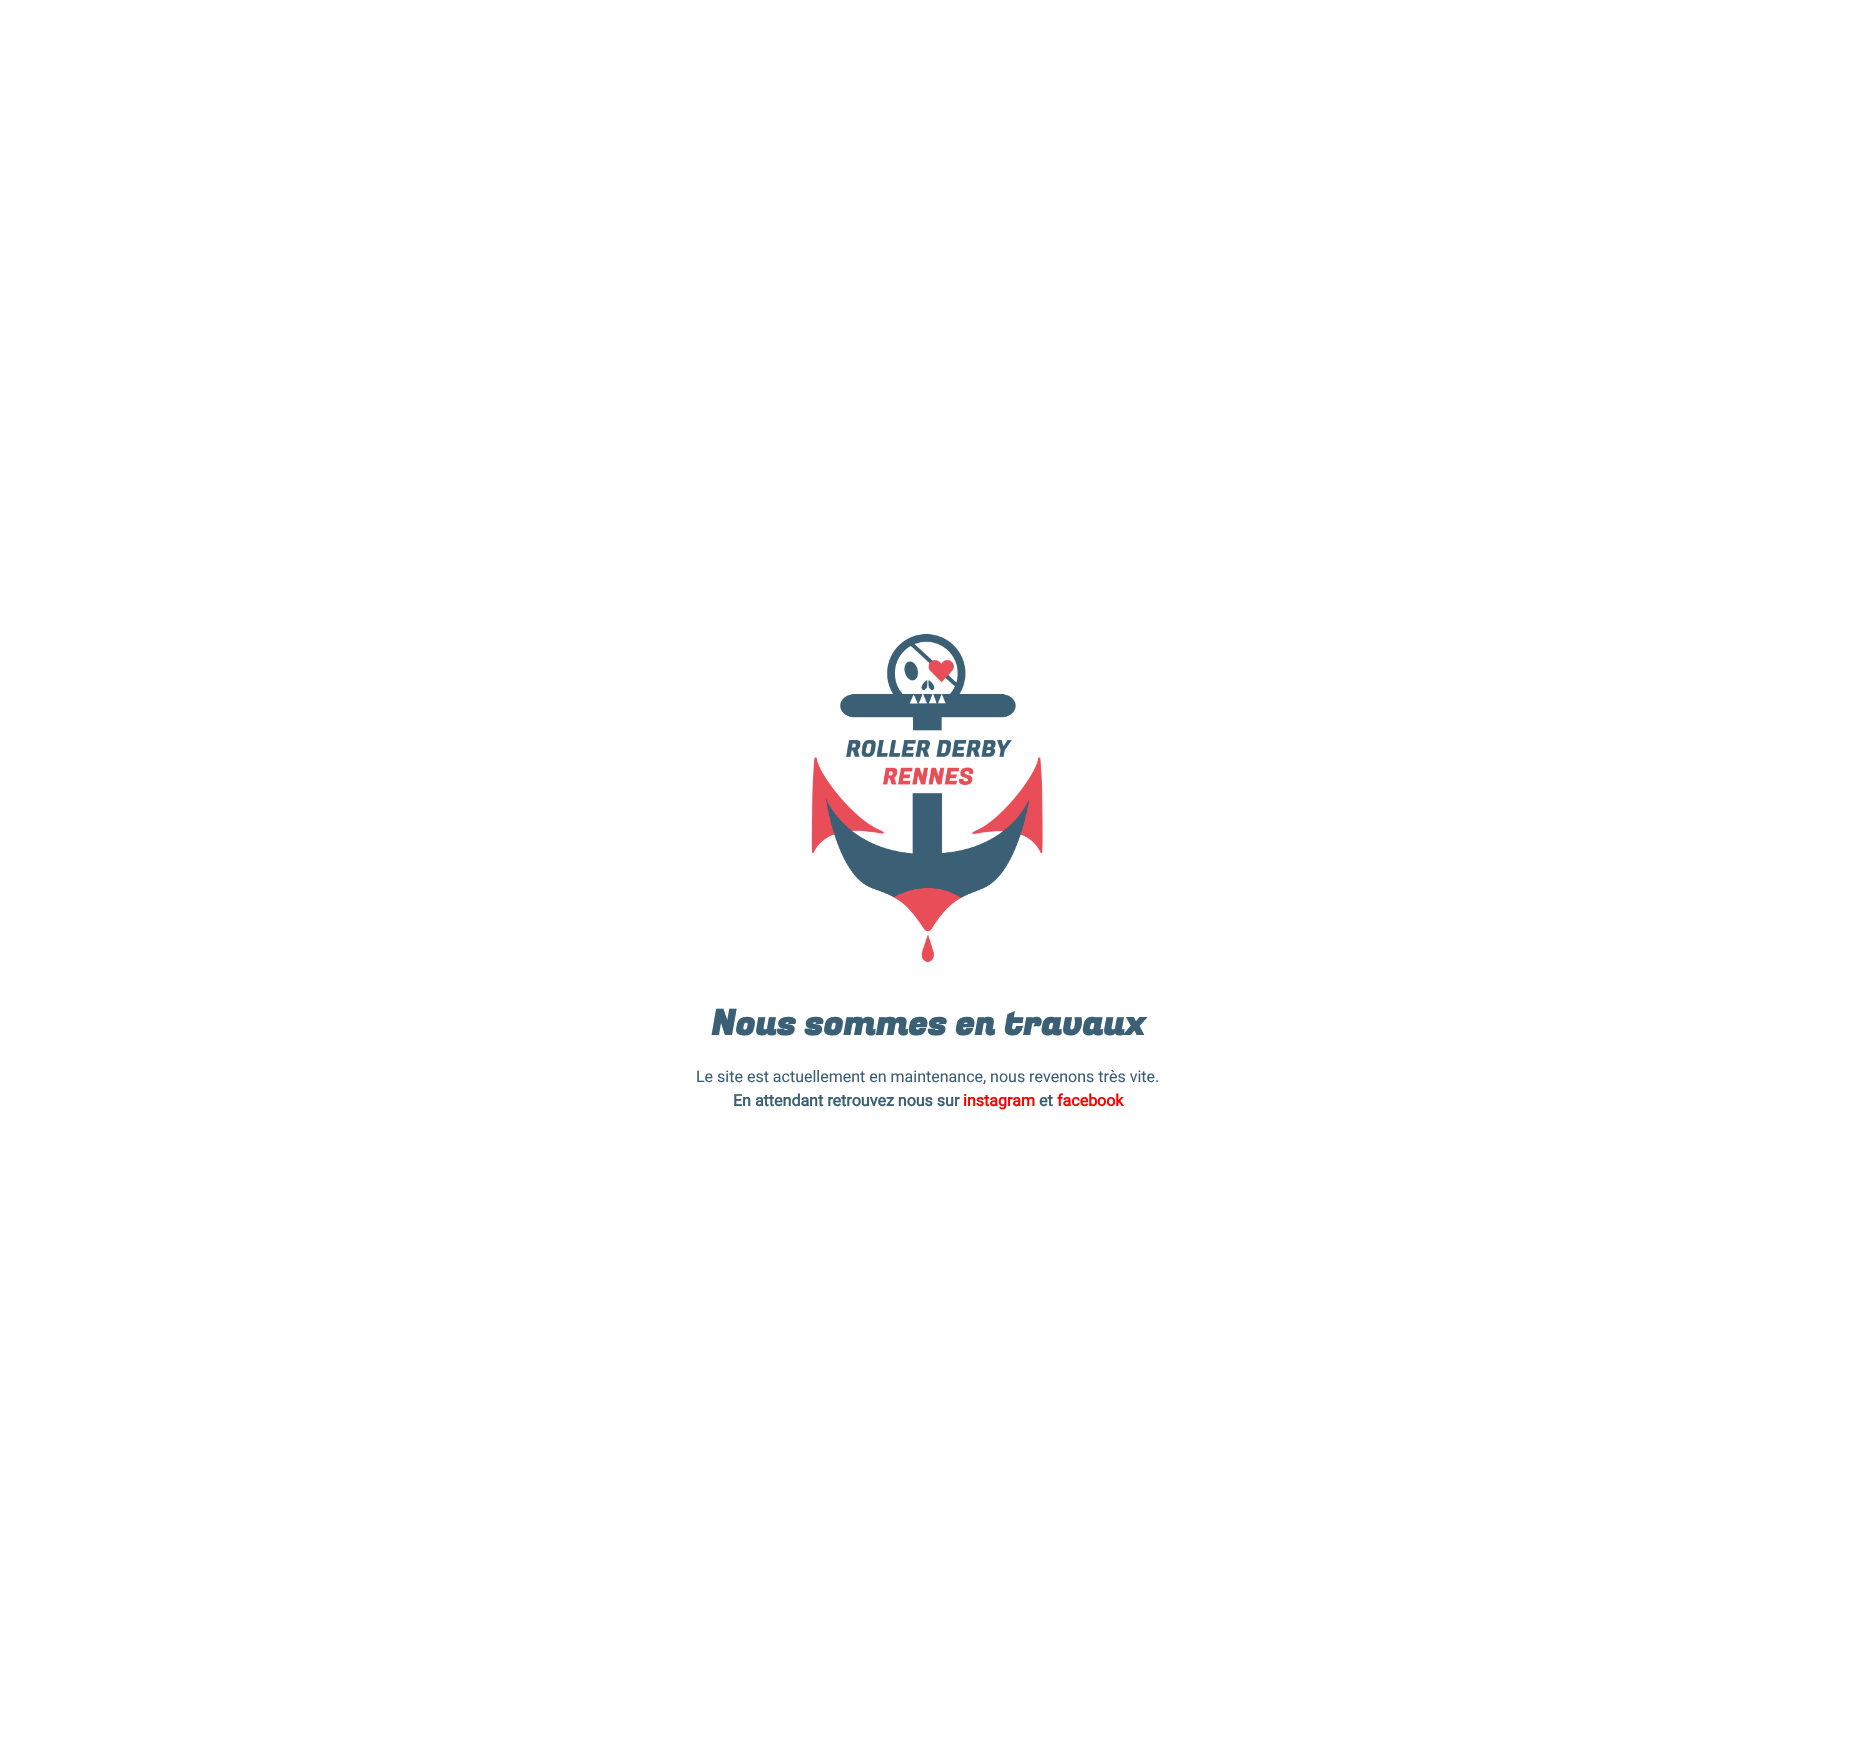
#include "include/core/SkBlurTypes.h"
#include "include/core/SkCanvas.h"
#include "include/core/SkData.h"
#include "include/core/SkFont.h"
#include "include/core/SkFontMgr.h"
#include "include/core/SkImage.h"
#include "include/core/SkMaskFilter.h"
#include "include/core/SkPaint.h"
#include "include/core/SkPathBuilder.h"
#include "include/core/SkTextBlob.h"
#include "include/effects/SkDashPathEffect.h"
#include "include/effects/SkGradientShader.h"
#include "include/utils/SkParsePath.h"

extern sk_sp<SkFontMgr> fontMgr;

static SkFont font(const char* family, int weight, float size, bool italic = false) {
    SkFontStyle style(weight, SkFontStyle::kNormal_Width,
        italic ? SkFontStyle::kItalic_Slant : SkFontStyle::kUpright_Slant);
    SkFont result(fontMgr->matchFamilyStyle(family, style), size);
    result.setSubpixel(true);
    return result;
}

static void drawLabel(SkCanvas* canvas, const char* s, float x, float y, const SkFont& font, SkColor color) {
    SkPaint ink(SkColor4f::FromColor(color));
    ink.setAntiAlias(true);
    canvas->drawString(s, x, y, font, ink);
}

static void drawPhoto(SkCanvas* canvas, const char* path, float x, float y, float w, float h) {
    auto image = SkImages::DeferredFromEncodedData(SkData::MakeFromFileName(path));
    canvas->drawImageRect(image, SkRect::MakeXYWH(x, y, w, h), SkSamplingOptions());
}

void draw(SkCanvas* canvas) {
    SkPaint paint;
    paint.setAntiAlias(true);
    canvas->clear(0xFFFFFFFF);
    drawPhoto(canvas, "assets/img1.png", 811, 633, 232, 330);
    SkFont font1 = font("Fugaz One", 700, 35);
    drawLabel(canvas, "Nous sommes en travaux", 711, 1035, font1, 0xFF3B6075);
    SkFont font2 = font("Roboto", 400, 16);
    drawLabel(canvas, "Le site est actuellement en maintenance, nous revenons très vite.", 696, 1082, font2, 0xFF3B6075);
    SkFont font3 = font("Roboto", 700, 16);
    drawLabel(canvas, "En attendant retrouvez nous sur", 733, 1106, font3, 0xFF3B6075);
    drawLabel(canvas, "instagram", 963, 1106, font3, 0xFFFF0000);
    drawLabel(canvas, "et", 1039, 1106, font3, 0xFF3B6075);
    drawLabel(canvas, "facebook", 1057, 1106, font3, 0xFFFF0000);
}
